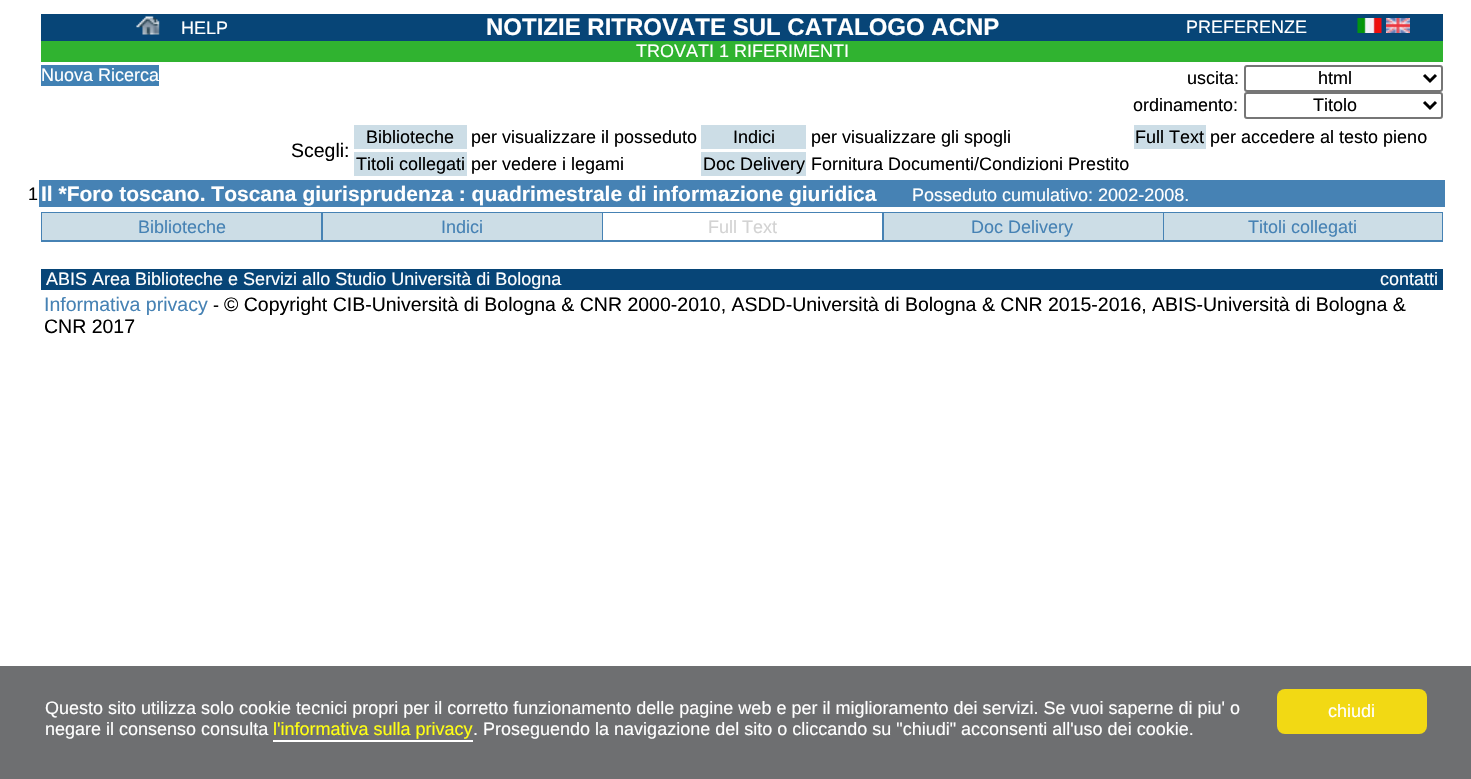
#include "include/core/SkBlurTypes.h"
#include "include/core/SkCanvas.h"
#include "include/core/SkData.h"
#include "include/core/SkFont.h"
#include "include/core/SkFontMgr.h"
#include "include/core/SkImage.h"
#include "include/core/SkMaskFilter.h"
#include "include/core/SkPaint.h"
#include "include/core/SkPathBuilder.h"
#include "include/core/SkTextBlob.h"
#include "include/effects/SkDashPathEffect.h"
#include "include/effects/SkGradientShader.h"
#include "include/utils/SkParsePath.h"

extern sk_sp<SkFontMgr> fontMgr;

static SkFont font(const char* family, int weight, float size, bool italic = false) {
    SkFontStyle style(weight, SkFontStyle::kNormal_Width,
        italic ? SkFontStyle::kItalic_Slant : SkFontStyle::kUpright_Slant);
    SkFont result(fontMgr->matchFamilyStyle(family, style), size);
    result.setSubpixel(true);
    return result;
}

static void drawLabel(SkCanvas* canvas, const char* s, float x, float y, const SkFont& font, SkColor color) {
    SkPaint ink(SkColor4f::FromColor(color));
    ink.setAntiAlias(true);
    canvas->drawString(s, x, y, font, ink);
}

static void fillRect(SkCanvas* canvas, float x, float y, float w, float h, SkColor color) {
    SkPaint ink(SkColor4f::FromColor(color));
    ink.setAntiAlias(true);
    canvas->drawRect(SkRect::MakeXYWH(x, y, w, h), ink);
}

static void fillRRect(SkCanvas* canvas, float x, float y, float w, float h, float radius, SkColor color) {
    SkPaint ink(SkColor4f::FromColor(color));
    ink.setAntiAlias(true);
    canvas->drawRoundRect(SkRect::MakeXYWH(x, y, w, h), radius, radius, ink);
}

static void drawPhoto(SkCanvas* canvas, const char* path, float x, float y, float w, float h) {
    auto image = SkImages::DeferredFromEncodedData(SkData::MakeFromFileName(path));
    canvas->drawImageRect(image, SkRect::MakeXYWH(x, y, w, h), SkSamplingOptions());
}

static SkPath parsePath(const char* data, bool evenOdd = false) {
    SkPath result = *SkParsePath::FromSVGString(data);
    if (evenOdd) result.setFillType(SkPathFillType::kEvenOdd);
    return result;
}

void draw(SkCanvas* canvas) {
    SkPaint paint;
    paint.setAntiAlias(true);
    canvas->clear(0xFFFFFFFF);
    fillRect(canvas, 41, 14, 1402, 27, 0xFF074577);
    drawPhoto(canvas, "assets/img1.png", 136, 16, 24, 19);
    SkFont font1 = font("Liberation Sans", 400, 18);
    drawLabel(canvas, "HELP", 181, 34, font1, 0xFFFFFFFF);
    SkFont font2 = font("Liberation Sans", 700, 24);
    drawLabel(canvas, "NOTIZIE RITROVATE SUL CATALOGO ACNP", 486, 35, font2, 0xFFFFFFFF);
    drawLabel(canvas, "PREFERENZE", 1186, 33, font1, 0xFFFFFFFF);
    drawPhoto(canvas, "assets/img2.png", 1357, 18, 25, 15);
    drawPhoto(canvas, "assets/img3.png", 1386, 18, 24, 15);
    fillRect(canvas, 41, 41, 1402, 21, 0xFF30B330);
    drawLabel(canvas, "TROVATI 1 RIFERIMENTI", 636, 57, font1, 0xFFFFFFFF);
    fillRect(canvas, 41, 65, 118, 21, 0xFF4181B4);
    drawLabel(canvas, "Nuova Ricerca", 41, 81, font1, 0xFFFFFFFF);
    drawLabel(canvas, "uscita:", 1187, 84, font1, 0xFF000000);
    paint.setStroke(true);
    paint.setStrokeWidth(2);
    paint.setColor(0xFF767676);
    canvas->drawRoundRect(SkRect::MakeXYWH(1245, 66, 197, 25), 2, 2, paint);
    paint.setStrokeWidth(3);
    paint.setColor(0xFF000000);
    canvas->drawPath(parsePath("M1424 75L1430 81L1436 75"), paint);
    drawLabel(canvas, "html", 1318, 84, font1, 0xFF000000);
    drawLabel(canvas, "ordinamento:", 1133, 111, font1, 0xFF000000);
    paint.setStrokeWidth(2);
    paint.setColor(0xFF767676);
    canvas->drawRoundRect(SkRect::MakeXYWH(1245, 93, 197, 25), 2, 2, paint);
    paint.setStrokeWidth(3);
    paint.setColor(0xFF000000);
    canvas->drawPath(parsePath("M1424 102L1430 108L1436 102"), paint);
    drawLabel(canvas, "Titolo", 1313, 111, font1, 0xFF000000);
    fillRect(canvas, 354, 125, 113, 24, 0xFFCCDDE6);
    drawLabel(canvas, "Biblioteche", 366, 143, font1, 0xFF000000);
    drawLabel(canvas, "per visualizzare il posseduto", 471, 143, font1, 0xFF000000);
    fillRect(canvas, 701, 125, 105, 24, 0xFFCCDDE6);
    drawLabel(canvas, "Indici", 733, 143, font1, 0xFF000000);
    drawLabel(canvas, "per visualizzare gli spogli", 811, 143, font1, 0xFF000000);
    fillRect(canvas, 1134, 125, 72, 24, 0xFFCCDDE6);
    drawLabel(canvas, "Full Text", 1135, 143, font1, 0xFF000000);
    drawLabel(canvas, "per accedere al testo pieno", 1210, 143, font1, 0xFF000000);
    SkFont font3 = font("Liberation Sans", 400, 19.5f);
    drawLabel(canvas, "Scegli:", 291, 157, font3, 0xFF000000);
    fillRect(canvas, 354, 152, 113, 24, 0xFFCCDDE6);
    drawLabel(canvas, "Titoli collegati", 356, 170, font1, 0xFF000000);
    drawLabel(canvas, "per vedere i legami", 471, 170, font1, 0xFF000000);
    fillRect(canvas, 701, 152, 105, 24, 0xFFCCDDE6);
    drawLabel(canvas, "Doc Delivery", 703, 170, font1, 0xFF000000);
    drawLabel(canvas, "Fornitura Documenti/Condizioni Prestito", 811, 170, font1, 0xFF000000);
    drawLabel(canvas, "1", 28, 200, font1, 0xFF000000);
    fillRect(canvas, 39, 180, 1406, 27, 0xFF4682B4);
    SkFont font4 = font("Liberation Sans", 700, 21);
    drawLabel(canvas, "Il *Foro toscano. Toscana giurisprudenza : quadrimestrale di informazione giuridica", 41, 201, font4, 0xFFFFFFFF);
    drawLabel(canvas, "Posseduto cumulativo: 2002-2008.", 912, 201, font1, 0xFFFFFFFF);
    fillRect(canvas, 41, 212, 1402, 30, 0xFF4682B4);
    fillRect(canvas, 42, 213, 279, 27, 0xFFCCDDE6);
    drawLabel(canvas, "Biblioteche", 138, 233, font1, 0xFF4682B4);
    fillRect(canvas, 323, 213, 279, 27, 0xFFCCDDE6);
    drawLabel(canvas, "Indici", 441, 233, font1, 0xFF4682B4);
    fillRect(canvas, 603, 213, 279, 27, 0xFFFFFFFF);
    drawLabel(canvas, "Full Text", 708, 233, font1, 0xFFD3D3D3);
    fillRect(canvas, 884, 213, 279, 27, 0xFFCCDDE6);
    drawLabel(canvas, "Doc Delivery", 971, 233, font1, 0xFF4682B4);
    fillRect(canvas, 1164, 213, 278, 27, 0xFFCCDDE6);
    drawLabel(canvas, "Titoli collegati", 1248, 233, font1, 0xFF4682B4);
    fillRect(canvas, 41, 269, 1402, 21, 0xFF074577);
    drawLabel(canvas, "ABIS Area Biblioteche e Servizi allo Studio Università di Bologna", 46, 285, font1, 0xFFFFFFFF);
    drawLabel(canvas, "contatti", 1380, 285, font1, 0xFFFFFFFF);
    drawLabel(canvas, "Informativa privacy", 44, 311, font3, 0xFF4682B4);
    drawLabel(canvas, "-", 213, 311, font1, 0xFF000000);
    drawLabel(canvas, "© Copyright CIB-Università di Bologna & CNR 2000-2010, ASDD-Università di Bologna & CNR 2015-2016, ABIS-Università di Bologna &", 224, 311, font3, 0xFF000000);
    drawLabel(canvas, "CNR 2017", 44, 333, font3, 0xFF000000);
    fillRect(canvas, 0, 666, 1471, 113, 0xFF6E6F71);
    drawLabel(canvas, "Questo sito utilizza solo cookie tecnici propri per il corretto funzionamento delle pagine web e per il miglioramento dei servizi. Se vuoi saperne di piu' o", 45, 714, font1, 0xFFFFFFFF);
    drawLabel(canvas, "negare il consenso consulta", 45, 735, font1, 0xFFFFFFFF);
    drawLabel(canvas, "l'informativa sulla privacy", 273, 735, font1, 0xFFFFFF14);
    fillRect(canvas, 273, 740, 200, 2, 0xFFFFFFFF);
    drawLabel(canvas, ". Proseguendo la navigazione del sito o cliccando su \"chiudi\" acconsenti all'uso dei cookie.", 473, 735, font1, 0xFFFFFFFF);
    fillRRect(canvas, 1277, 689, 150, 45, 8, 0xFFF2D914);
    drawLabel(canvas, "chiudi", 1328, 717, font1, 0xFFFFFFFF);
}
